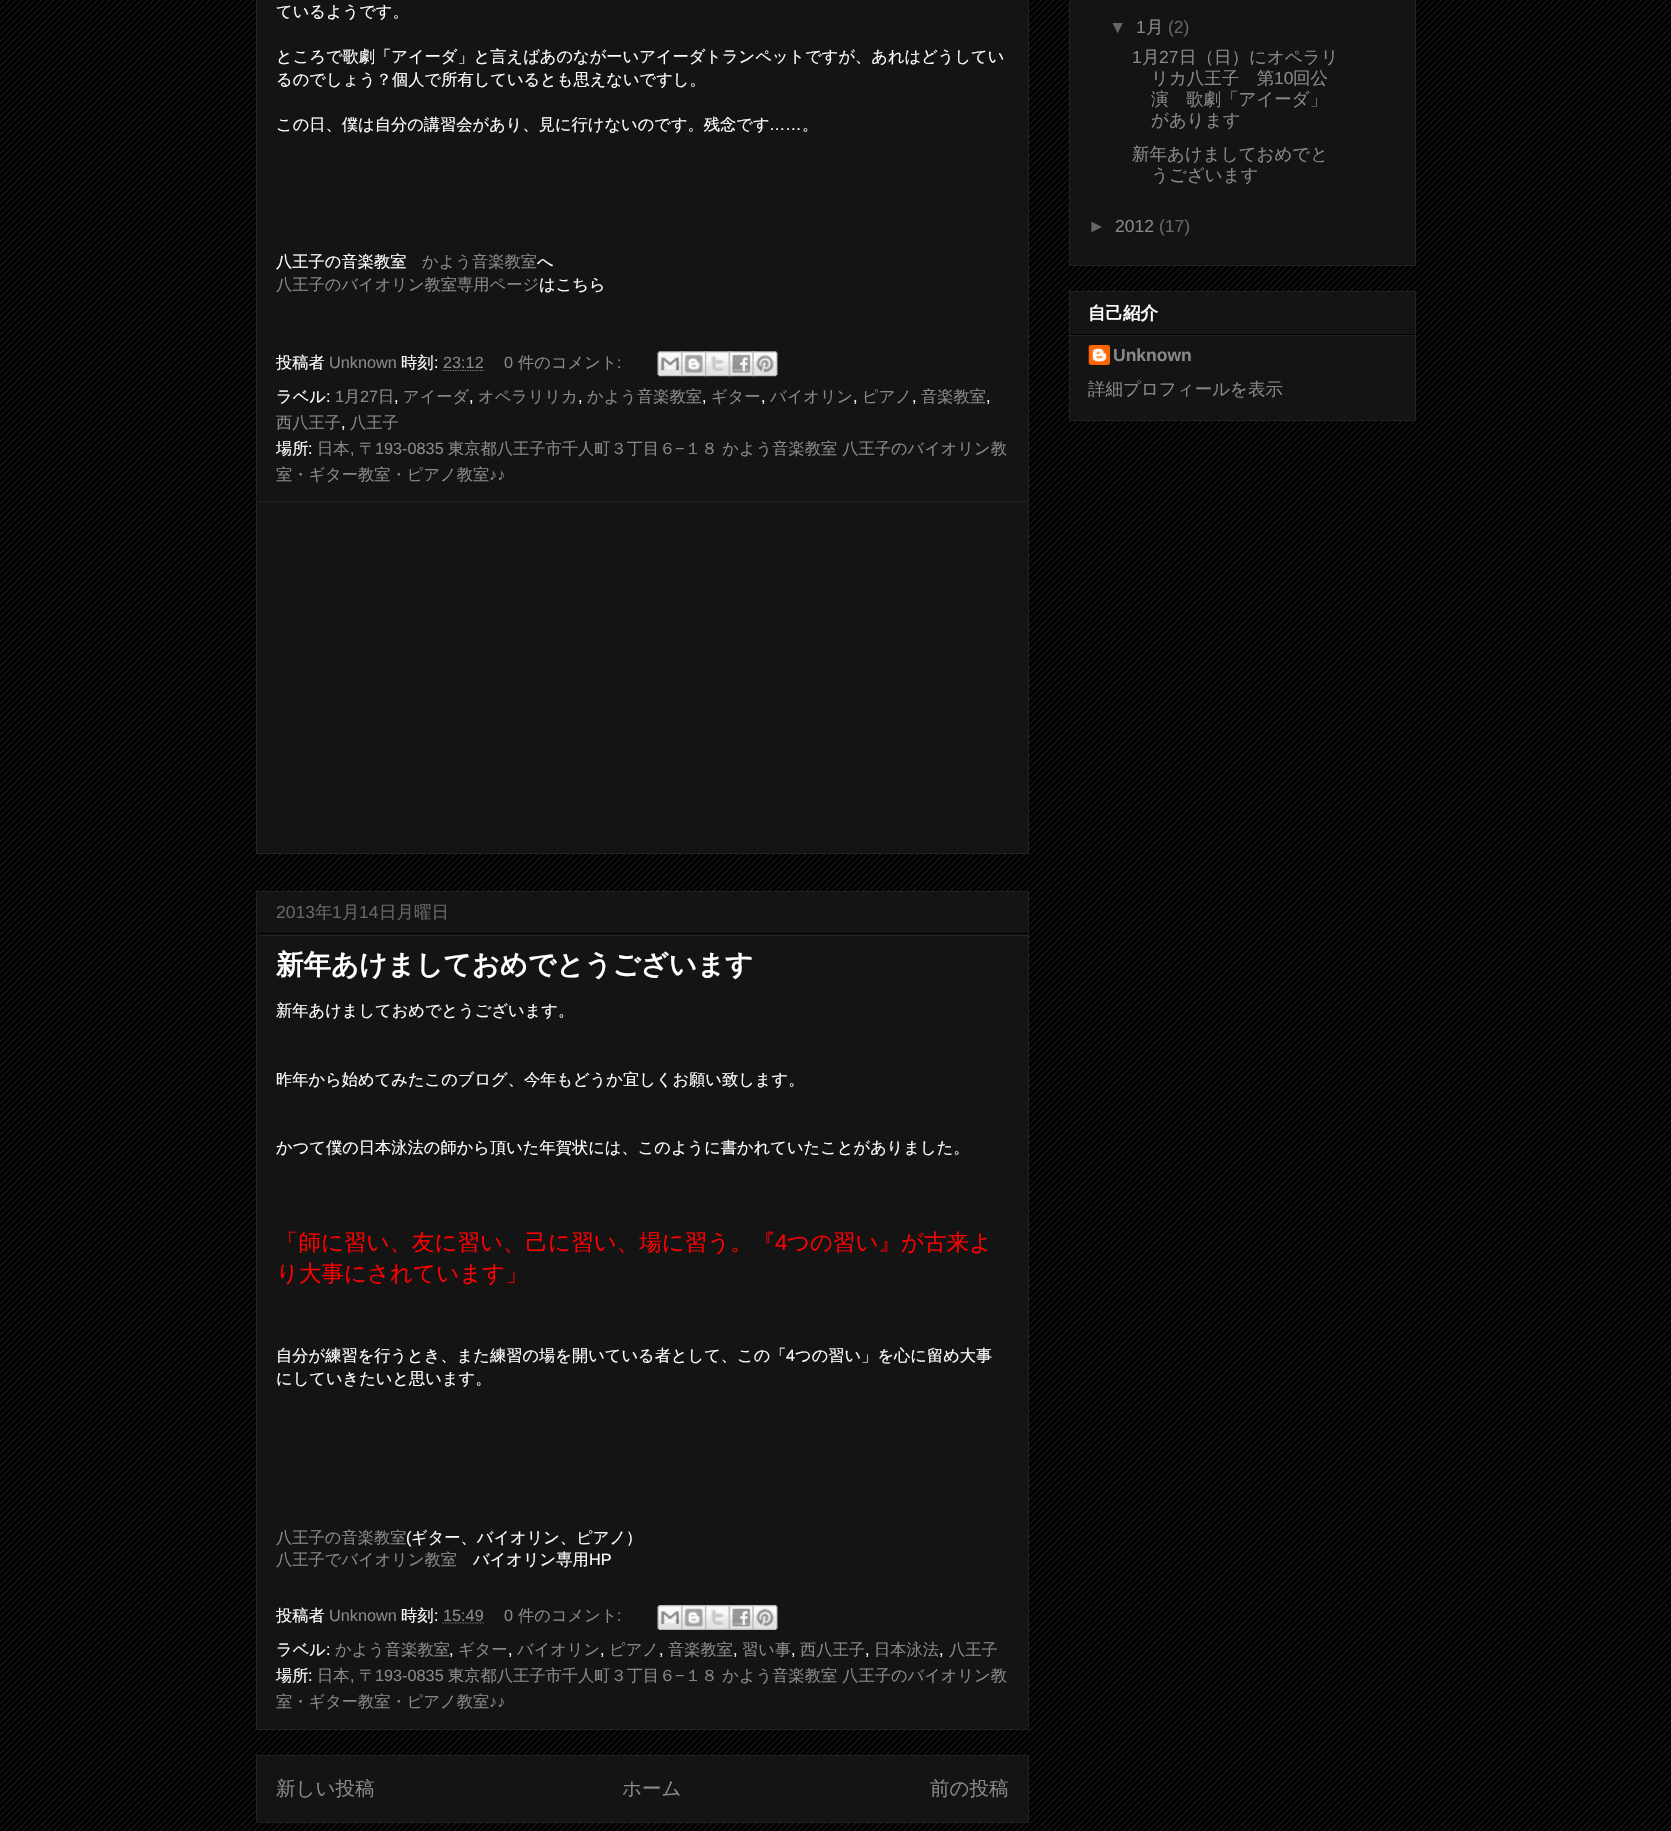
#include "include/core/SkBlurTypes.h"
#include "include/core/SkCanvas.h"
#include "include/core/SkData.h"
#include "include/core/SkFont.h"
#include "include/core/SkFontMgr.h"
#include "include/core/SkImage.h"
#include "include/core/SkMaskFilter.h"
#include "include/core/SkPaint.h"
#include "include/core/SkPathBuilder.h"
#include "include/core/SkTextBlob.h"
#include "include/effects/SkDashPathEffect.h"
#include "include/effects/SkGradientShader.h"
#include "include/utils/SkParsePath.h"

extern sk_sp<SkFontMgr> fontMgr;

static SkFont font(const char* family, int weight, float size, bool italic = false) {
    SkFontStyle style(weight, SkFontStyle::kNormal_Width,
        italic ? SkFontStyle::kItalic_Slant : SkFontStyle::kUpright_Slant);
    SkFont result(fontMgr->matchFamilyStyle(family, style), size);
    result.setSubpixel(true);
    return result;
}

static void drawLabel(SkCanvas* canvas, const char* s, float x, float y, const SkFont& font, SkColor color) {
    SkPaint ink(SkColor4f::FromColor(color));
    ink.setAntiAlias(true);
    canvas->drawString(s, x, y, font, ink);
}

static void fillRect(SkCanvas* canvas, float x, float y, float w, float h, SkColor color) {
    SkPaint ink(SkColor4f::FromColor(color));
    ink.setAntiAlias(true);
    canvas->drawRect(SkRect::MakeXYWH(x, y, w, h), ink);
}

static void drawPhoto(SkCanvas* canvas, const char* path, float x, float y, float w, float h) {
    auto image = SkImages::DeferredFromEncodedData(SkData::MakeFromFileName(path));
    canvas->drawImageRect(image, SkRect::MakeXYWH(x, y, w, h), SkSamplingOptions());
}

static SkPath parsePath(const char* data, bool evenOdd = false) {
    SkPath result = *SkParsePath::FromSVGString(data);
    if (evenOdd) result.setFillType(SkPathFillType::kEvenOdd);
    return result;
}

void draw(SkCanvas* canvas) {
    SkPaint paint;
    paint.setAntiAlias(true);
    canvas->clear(0xFF000000);
    drawPhoto(canvas, "assets/img1.png", 0, 0, 1671, 1831);
    paint.setColor(0xFF141414);
    canvas->drawRect(SkRect::MakeXYWH(256.5f, -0.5f, 772, 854), paint);
    paint.setStroke(true);
    paint.setStrokeWidth(1);
    paint.setColor(0xFF222222);
    canvas->drawRect(SkRect::MakeXYWH(256.5f, -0.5f, 772, 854), paint);
    SkFont font1 = font("WenQuanYi Zen Hei", 500, 16.25f);
    drawLabel(canvas, "ているようです。", 276, 17, font1, 0xFFFFFFFF);
    drawLabel(canvas, "ところで歌劇「アイーダ」と言えばあのながーいアイーダトランペットですが、あれはどうしてい", 276, 62, font1, 0xFFFFFFFF);
    drawLabel(canvas, "るのでしょう？個人で所有しているとも思えないですし。", 276, 85, font1, 0xFFFFFFFF);
    drawLabel(canvas, "この日、僕は自分の講習会があり、見に行けないのです。残念です", 276, 130, font1, 0xFFFFFFFF);
    SkFont font2 = font("Liberation Sans", 400, 16.25f);
    drawLabel(canvas, "……", 769, 130, font2, 0xFFFFFFFF);
    drawLabel(canvas, "。", 802, 130, font1, 0xFFFFFFFF);
    drawLabel(canvas, "八王子の音楽教室", 276, 267, font1, 0xFFFFFFFF);
    drawLabel(canvas, "かよう音楽教室", 422, 267, font1, 0xFF888888);
    drawLabel(canvas, "へ", 537, 267, font1, 0xFFFFFFFF);
    drawLabel(canvas, "八王子のバイオリン教室専用ページ", 276, 290, font1, 0xFF888888);
    drawLabel(canvas, "はこちら", 539, 290, font1, 0xFFFFFFFF);
    drawLabel(canvas, "投稿者", 276, 368, font1, 0xFFFFFFFF);
    drawLabel(canvas, "Unknown", 329, 368, font2, 0xFF888888);
    drawLabel(canvas, "時刻", 401, 368, font1, 0xFFFFFFFF);
    drawLabel(canvas, ":", 434, 368, font2, 0xFFFFFFFF);
    drawLabel(canvas, "23:12", 443, 368, font2, 0xFF888888);
    paint.setStrokeWidth(1.2f);
    paint.setColor(0xFF888888);
    paint.setPathEffect(SkDashPathEffect::Make({{1.25f, 1.25f}}, 0));
    canvas->drawPath(parsePath("M442.5 370.5H483.5"), paint);
    paint.setPathEffect(nullptr);
    drawLabel(canvas, "0", 504, 368, font2, 0xFF888888);
    drawLabel(canvas, "件のコメント", 518, 368, font1, 0xFF888888);
    drawLabel(canvas, ":", 617, 368, font2, 0xFF888888);
    drawPhoto(canvas, "assets/img2.png", 657, 351, 26, 26);
    drawPhoto(canvas, "assets/img3.png", 681, 351, 26, 26);
    drawPhoto(canvas, "assets/img4.png", 705, 351, 25, 26);
    drawPhoto(canvas, "assets/img5.png", 728, 351, 26, 26);
    drawPhoto(canvas, "assets/img6.png", 752, 351, 26, 26);
    drawLabel(canvas, "ラベル", 276, 402, font1, 0xFFFFFFFF);
    drawLabel(canvas, ":", 326, 402, font2, 0xFFFFFFFF);
    drawLabel(canvas, "1", 335, 402, font2, 0xFF888888);
    drawLabel(canvas, "月", 344, 402, font1, 0xFF888888);
    drawLabel(canvas, "27", 360, 402, font2, 0xFF888888);
    drawLabel(canvas, "日", 378, 402, font1, 0xFF888888);
    drawLabel(canvas, "アイーダ", 403, 402, font1, 0xFF888888);
    drawLabel(canvas, "オペラリリカ", 478, 402, font1, 0xFF888888);
    drawLabel(canvas, "かよう音楽教室", 587, 402, font1, 0xFF888888);
    drawLabel(canvas, "ギター", 711, 402, font1, 0xFF888888);
    drawLabel(canvas, "バイオリン", 770, 402, font1, 0xFF888888);
    drawLabel(canvas, "ピアノ", 862, 402, font1, 0xFF888888);
    drawLabel(canvas, "音楽教室", 921, 402, font1, 0xFF888888);
    drawLabel(canvas, ",", 394, 402, font2, 0xFFFFFFFF);
    drawLabel(canvas, ",", 469, 402, font2, 0xFFFFFFFF);
    drawLabel(canvas, ",", 578, 402, font2, 0xFFFFFFFF);
    drawLabel(canvas, ",", 702, 402, font2, 0xFFFFFFFF);
    drawLabel(canvas, ",", 761, 402, font2, 0xFFFFFFFF);
    drawLabel(canvas, ",", 853, 402, font2, 0xFFFFFFFF);
    drawLabel(canvas, ",", 912, 402, font2, 0xFFFFFFFF);
    drawLabel(canvas, ",", 986, 402, font2, 0xFFFFFFFF);
    drawLabel(canvas, "西八王子", 276, 428, font1, 0xFF888888);
    drawLabel(canvas, ",", 341, 428, font2, 0xFFFFFFFF);
    drawLabel(canvas, "八王子", 350, 428, font1, 0xFF888888);
    drawLabel(canvas, "場所", 276, 454, font1, 0xFFFFFFFF);
    drawLabel(canvas, ":", 308, 454, font2, 0xFFFFFFFF);
    drawLabel(canvas, "日本", 317, 454, font1, 0xFF888888);
    drawLabel(canvas, "〒", 359, 454, font1, 0xFF888888);
    drawLabel(canvas, "193-0835", 375, 454, font2, 0xFF888888);
    drawLabel(canvas, "東京都八王子市千人町３丁目６", 448, 454, font1, 0xFF888888);
    drawLabel(canvas, "−", 675, 454, font2, 0xFF888888);
    drawLabel(canvas, "１８ かよう音楽教室 八王子のバイオリン教", 685, 454, font1, 0xFF888888);
    drawLabel(canvas, ",", 350, 454, font2, 0xFF888888);
    drawLabel(canvas, "室・ギター教室・ピアノ教室", 276, 480, font1, 0xFF888888);
    drawLabel(canvas, "♪♪", 489, 480, font2, 0xFF888888);
    fillRect(canvas, 258, 501, 770, 1, 0xFF222222);
    paint.setStroke(false);
    paint.setColor(0xFF141414);
    canvas->drawRect(SkRect::MakeXYWH(256.5f, 891.5f, 772, 838), paint);
    paint.setStroke(true);
    paint.setStrokeWidth(1);
    paint.setColor(0xFF222222);
    canvas->drawRect(SkRect::MakeXYWH(256.5f, 891.5f, 772, 838), paint);
    fillRect(canvas, 258, 933, 770, 1, 0xFF000000);
    SkFont font3 = font("Liberation Sans", 400, 17.5f);
    drawLabel(canvas, "2013", 276, 918, font3, 0xFF666666);
    SkFont font4 = font("WenQuanYi Zen Hei", 500, 17.5f);
    drawLabel(canvas, "年", 315, 918, font4, 0xFF666666);
    drawLabel(canvas, "1", 332, 918, font3, 0xFF666666);
    drawLabel(canvas, "月", 342, 918, font4, 0xFF666666);
    drawLabel(canvas, "14", 359, 918, font3, 0xFF666666);
    drawLabel(canvas, "日月曜日", 379, 918, font4, 0xFF666666);
    fillRect(canvas, 258, 935, 770, 1, 0xFF222222);
    SkFont font5 = font("WenQuanYi Zen Hei", 700, 27.5f);
    drawLabel(canvas, "新年あけましておめでとうございます", 276, 974, font5, 0xFFFFFFFF);
    drawLabel(canvas, "新年あけましておめでとうございます。", 276, 1016, font1, 0xFFFFFFFF);
    drawLabel(canvas, "昨年から始めてみたこのブログ、今年もどうか宜しくお願い致します。", 276, 1085, font1, 0xFFFFFFFF);
    drawLabel(canvas, "かつて僕の日本泳法の師から頂いた年賀状には、このように書かれていたことがありました。", 276, 1153, font1, 0xFFFFFFFF);
    SkFont font6 = font("WenQuanYi Zen Hei", 500, 22.5f);
    drawLabel(canvas, "「師に習い、友に習い、己に習い、場に習う。『", 276, 1250, font6, 0xFFFF0000);
    SkFont font7 = font("Liberation Sans", 400, 22.5f);
    drawLabel(canvas, "4", 775, 1250, font7, 0xFFFF0000);
    drawLabel(canvas, "つの習い』が古来よ", 787, 1250, font6, 0xFFFF0000);
    drawLabel(canvas, "り大事にされています」", 276, 1281, font6, 0xFFFF0000);
    drawLabel(canvas, "自分が練習を行うとき、また練習の場を開いている者として、この「", 276, 1361, font1, 0xFFFFFFFF);
    drawLabel(canvas, "4", 786, 1361, font2, 0xFFFFFFFF);
    drawLabel(canvas, "つの習い」を心に留め大事", 795, 1361, font1, 0xFFFFFFFF);
    drawLabel(canvas, "にしていきたいと思います。", 276, 1384, font1, 0xFFFFFFFF);
    drawLabel(canvas, "八王子の音楽教室", 276, 1543, font1, 0xFF888888);
    drawLabel(canvas, "(", 406, 1543, font2, 0xFFFFFFFF);
    drawLabel(canvas, "ギター、バイオリン、ピアノ）", 411, 1543, font1, 0xFFFFFFFF);
    drawLabel(canvas, "八王子でバイオリン教室", 276, 1565, font1, 0xFF888888);
    drawLabel(canvas, "バイオリン専用", 473, 1565, font1, 0xFFFFFFFF);
    drawLabel(canvas, "HP", 589, 1565, font2, 0xFFFFFFFF);
    drawLabel(canvas, "投稿者", 276, 1621, font1, 0xFFFFFFFF);
    drawLabel(canvas, "Unknown", 329, 1621, font2, 0xFF888888);
    drawLabel(canvas, "時刻", 401, 1621, font1, 0xFFFFFFFF);
    drawLabel(canvas, ":", 434, 1621, font2, 0xFFFFFFFF);
    drawLabel(canvas, "15:49", 443, 1621, font2, 0xFF888888);
    paint.setStrokeWidth(1.2f);
    paint.setColor(0xFF888888);
    paint.setPathEffect(SkDashPathEffect::Make({{1.25f, 1.25f}}, 0));
    canvas->drawPath(parsePath("M442.5 1623H483.5"), paint);
    paint.setPathEffect(nullptr);
    drawLabel(canvas, "0", 504, 1621, font2, 0xFF888888);
    drawLabel(canvas, "件のコメント", 518, 1621, font1, 0xFF888888);
    drawLabel(canvas, ":", 617, 1621, font2, 0xFF888888);
    drawPhoto(canvas, "assets/img7.png", 657, 1605, 25, 25);
    drawPhoto(canvas, "assets/img8.png", 681, 1605, 24, 25);
    drawPhoto(canvas, "assets/img9.png", 705, 1605, 24, 25);
    drawPhoto(canvas, "assets/img10.png", 728, 1605, 25, 25);
    drawPhoto(canvas, "assets/img11.png", 752, 1605, 26, 25);
    drawLabel(canvas, "ラベル", 276, 1655, font1, 0xFFFFFFFF);
    drawLabel(canvas, ":", 326, 1655, font2, 0xFFFFFFFF);
    drawLabel(canvas, "かよう音楽教室", 335, 1655, font1, 0xFF888888);
    drawLabel(canvas, "ギター", 458, 1655, font1, 0xFF888888);
    drawLabel(canvas, "バイオリン", 517, 1655, font1, 0xFF888888);
    drawLabel(canvas, "ピアノ", 609, 1655, font1, 0xFF888888);
    drawLabel(canvas, "音楽教室", 668, 1655, font1, 0xFF888888);
    drawLabel(canvas, "習い事", 742, 1655, font1, 0xFF888888);
    drawLabel(canvas, "西八王子", 800, 1655, font1, 0xFF888888);
    drawLabel(canvas, "日本泳法", 874, 1655, font1, 0xFF888888);
    drawLabel(canvas, "八王子", 949, 1655, font1, 0xFF888888);
    drawLabel(canvas, ",", 449, 1655, font2, 0xFFFFFFFF);
    drawLabel(canvas, ",", 508, 1655, font2, 0xFFFFFFFF);
    drawLabel(canvas, ",", 600, 1655, font2, 0xFFFFFFFF);
    drawLabel(canvas, ",", 659, 1655, font2, 0xFFFFFFFF);
    drawLabel(canvas, ",", 733, 1655, font2, 0xFFFFFFFF);
    drawLabel(canvas, ",", 791, 1655, font2, 0xFFFFFFFF);
    drawLabel(canvas, ",", 865, 1655, font2, 0xFFFFFFFF);
    drawLabel(canvas, ",", 939, 1655, font2, 0xFFFFFFFF);
    drawLabel(canvas, "場所", 276, 1681, font1, 0xFFFFFFFF);
    drawLabel(canvas, ":", 308, 1681, font2, 0xFFFFFFFF);
    drawLabel(canvas, "日本", 317, 1681, font1, 0xFF888888);
    drawLabel(canvas, "〒", 359, 1681, font1, 0xFF888888);
    drawLabel(canvas, "193-0835", 375, 1681, font2, 0xFF888888);
    drawLabel(canvas, "東京都八王子市千人町３丁目６", 448, 1681, font1, 0xFF888888);
    drawLabel(canvas, "−", 675, 1681, font2, 0xFF888888);
    drawLabel(canvas, "１８ かよう音楽教室 八王子のバイオリン教", 685, 1681, font1, 0xFF888888);
    drawLabel(canvas, ",", 350, 1681, font2, 0xFF888888);
    drawLabel(canvas, "室・ギター教室・ピアノ教室", 276, 1707, font1, 0xFF888888);
    drawLabel(canvas, "♪♪", 489, 1707, font2, 0xFF888888);
    paint.setStroke(false);
    paint.setColor(0xFF141414);
    canvas->drawRect(SkRect::MakeXYWH(256.5f, 1755.5f, 772, 67), paint);
    paint.setStroke(true);
    paint.setStrokeWidth(1);
    paint.setColor(0xFF222222);
    canvas->drawRect(SkRect::MakeXYWH(256.5f, 1755.5f, 772, 67), paint);
    SkFont font8 = font("WenQuanYi Zen Hei", 500, 19.5f);
    drawLabel(canvas, "新しい投稿", 276, 1795, font8, 0xFF888888);
    drawLabel(canvas, "ホーム", 622, 1795, font8, 0xFF888888);
    drawLabel(canvas, "前の投稿", 930, 1795, font8, 0xFF888888);
    paint.setStroke(false);
    paint.setColor(0xFF141414);
    canvas->drawRect(SkRect::MakeXYWH(1069.5f, -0.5f, 346, 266), paint);
    paint.setStroke(true);
    paint.setColor(0xFF222222);
    canvas->drawRect(SkRect::MakeXYWH(1069.5f, -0.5f, 346, 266), paint);
    drawLabel(canvas, "▼", 1109, 33, font3, 0xFF666666);
    drawLabel(canvas, "1", 1136, 33, font3, 0xFF888888);
    drawLabel(canvas, "月", 1146, 33, font4, 0xFF888888);
    drawLabel(canvas, "(2)", 1168, 33, font3, 0xFF666666);
    drawLabel(canvas, "1", 1132, 63, font3, 0xFF888888);
    drawLabel(canvas, "月", 1142, 63, font4, 0xFF888888);
    drawLabel(canvas, "27", 1159, 63, font3, 0xFF888888);
    drawLabel(canvas, "日（日）にオペラリ", 1179, 63, font4, 0xFF888888);
    drawLabel(canvas, "リカ八王子　第", 1151, 84, font4, 0xFF888888);
    drawLabel(canvas, "10", 1274, 84, font3, 0xFF888888);
    drawLabel(canvas, "回公", 1293, 84, font4, 0xFF888888);
    drawLabel(canvas, "演　歌劇「アイーダ」", 1151, 105, font4, 0xFF888888);
    drawLabel(canvas, "があります", 1151, 126, font4, 0xFF888888);
    drawLabel(canvas, "新年あけましておめでと", 1132, 160, font4, 0xFF888888);
    drawLabel(canvas, "うございます", 1151, 181, font4, 0xFF888888);
    drawLabel(canvas, "►", 1088, 232, font3, 0xFF666666);
    drawLabel(canvas, "2012", 1115, 232, font3, 0xFF888888);
    drawLabel(canvas, "(17)", 1159, 232, font3, 0xFF666666);
    paint.setStroke(false);
    paint.setColor(0xFF141414);
    canvas->drawRect(SkRect::MakeXYWH(1069.5f, 291.5f, 346, 129), paint);
    paint.setStroke(true);
    paint.setColor(0xFF222222);
    canvas->drawRect(SkRect::MakeXYWH(1069.5f, 291.5f, 346, 129), paint);
    fillRect(canvas, 1070, 334, 345, 1, 0xFF000000);
    SkFont font9 = font("WenQuanYi Zen Hei", 700, 17.5f);
    drawLabel(canvas, "自己紹介", 1088, 319, font9, 0xFFFFFFFF);
    fillRect(canvas, 1070, 335, 345, 1, 0xFF222222);
    drawPhoto(canvas, "assets/img12.png", 1088, 345, 22, 20);
    SkFont font10 = font("Liberation Sans", 700, 17.5f);
    drawLabel(canvas, "Unknown", 1113, 361, font10, 0xFF888888);
    drawLabel(canvas, "詳細プロフィールを表示", 1088, 395, font4, 0xFF888888);
}
